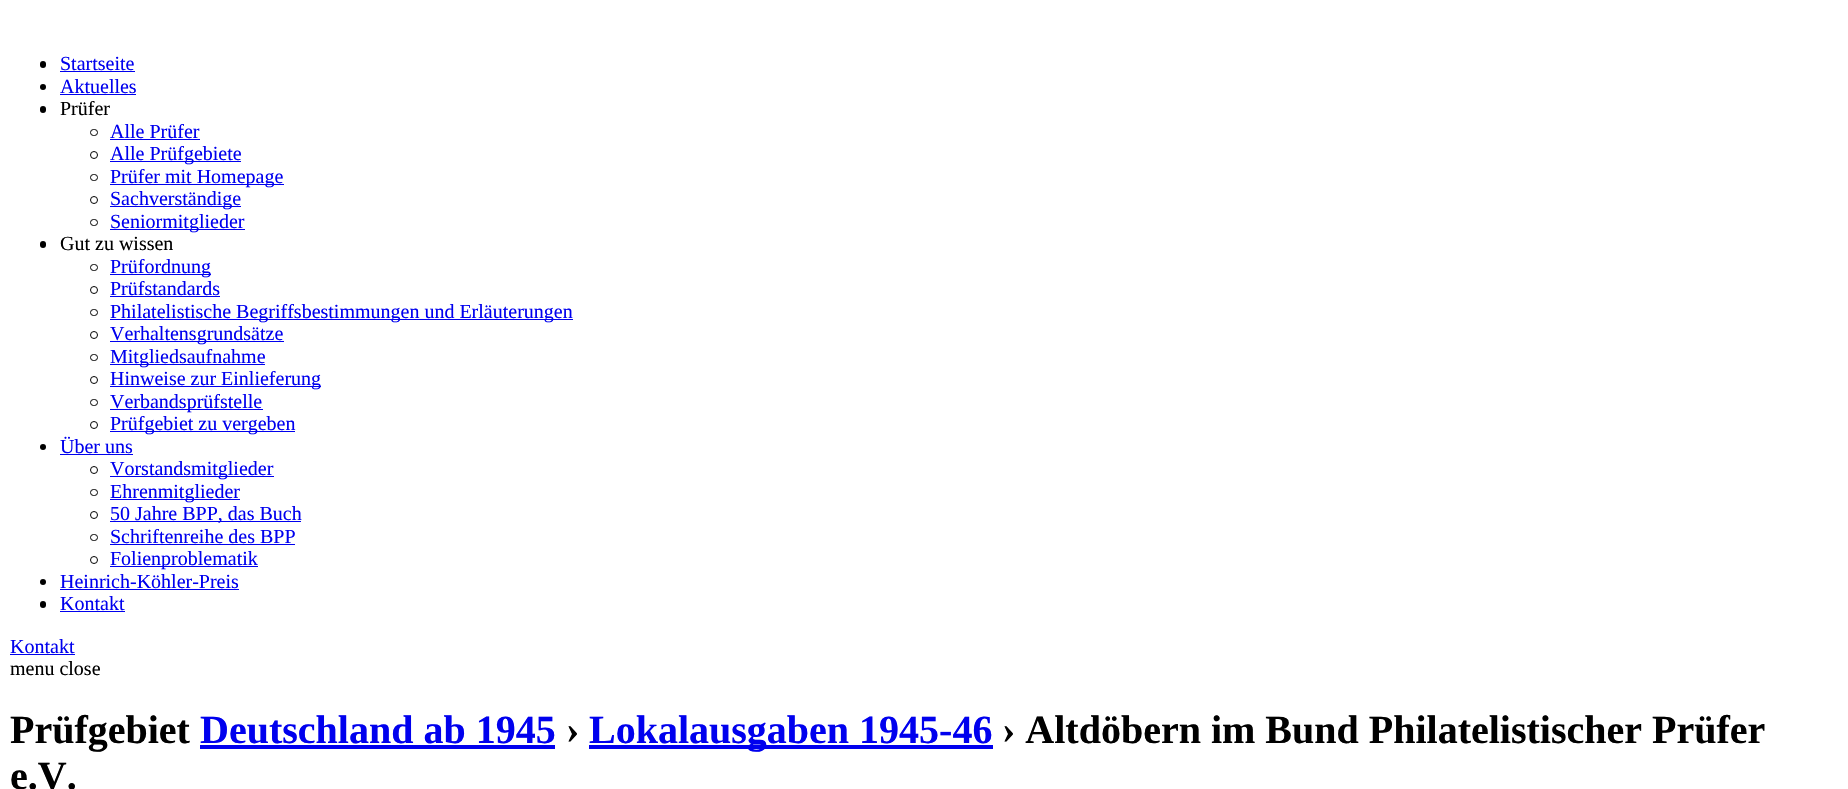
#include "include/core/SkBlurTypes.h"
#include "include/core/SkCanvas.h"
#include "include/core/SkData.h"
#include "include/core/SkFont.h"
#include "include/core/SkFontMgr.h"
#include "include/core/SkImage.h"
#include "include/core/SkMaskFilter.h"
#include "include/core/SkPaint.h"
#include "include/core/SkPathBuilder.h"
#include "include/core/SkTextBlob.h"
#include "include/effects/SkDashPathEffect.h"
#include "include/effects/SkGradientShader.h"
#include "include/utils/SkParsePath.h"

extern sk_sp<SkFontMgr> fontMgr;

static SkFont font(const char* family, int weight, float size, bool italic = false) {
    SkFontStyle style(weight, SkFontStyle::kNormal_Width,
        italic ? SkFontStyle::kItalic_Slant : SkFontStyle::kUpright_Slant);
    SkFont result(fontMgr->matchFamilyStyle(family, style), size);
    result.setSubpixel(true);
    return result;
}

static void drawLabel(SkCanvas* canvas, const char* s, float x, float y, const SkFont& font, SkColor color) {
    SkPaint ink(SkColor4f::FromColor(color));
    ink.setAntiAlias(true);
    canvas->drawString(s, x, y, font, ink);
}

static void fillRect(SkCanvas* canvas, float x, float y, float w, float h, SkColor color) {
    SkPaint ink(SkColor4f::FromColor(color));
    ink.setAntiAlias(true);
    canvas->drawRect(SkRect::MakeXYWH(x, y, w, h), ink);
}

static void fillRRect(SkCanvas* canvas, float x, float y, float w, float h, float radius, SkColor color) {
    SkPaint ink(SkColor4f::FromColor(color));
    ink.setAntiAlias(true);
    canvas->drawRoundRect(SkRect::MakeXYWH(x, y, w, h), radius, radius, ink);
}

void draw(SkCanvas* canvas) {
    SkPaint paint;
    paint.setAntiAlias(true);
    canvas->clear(0xFFFFFFFF);
    fillRRect(canvas, 40, 61, 6, 7, 3, 0xFF000000);
    SkFont font1 = font("Liberation Serif", 400, 20);
    drawLabel(canvas, "Startseite", 60, 70, font1, 0xFF0000EE);
    fillRect(canvas, 60, 71, 75, 1, 0xFF0000EE);
    paint.setColor(0xFF000000);
    canvas->drawCircle(43, 87, 3, paint);
    drawLabel(canvas, "Aktuelles", 60, 93, font1, 0xFF0000EE);
    fillRect(canvas, 60, 94, 76, 1, 0xFF0000EE);
    fillRRect(canvas, 40, 106, 6, 7, 3, 0xFF000000);
    drawLabel(canvas, "Prüfer", 60, 115, font1, 0xFF000000);
    paint.setStroke(true);
    paint.setStrokeWidth(1);
    canvas->drawRoundRect(SkRect::MakeXYWH(90.5f, 129.5f, 7, 6), 3, 3, paint);
    drawLabel(canvas, "Alle Prüfer", 110, 138, font1, 0xFF0000EE);
    fillRect(canvas, 110, 139, 90, 1, 0xFF0000EE);
    canvas->drawCircle(94, 155, 3.5f, paint);
    fillRect(canvas, 110, 161, 131, 1, 0xFF0000EE);
    drawLabel(canvas, "Alle Prüfgebiete", 110, 160, font1, 0xFF0000EE);
    canvas->drawRoundRect(SkRect::MakeXYWH(90.5f, 174.5f, 7, 6), 3, 3, paint);
    fillRect(canvas, 110, 184, 174, 1, 0xFF0000EE);
    drawLabel(canvas, "Prüfer mit Homepage", 110, 183, font1, 0xFF0000EE);
    canvas->drawCircle(94, 200, 3.5f, paint);
    fillRect(canvas, 110, 206, 131, 1, 0xFF0000EE);
    drawLabel(canvas, "Sachverständige", 110, 205, font1, 0xFF0000EE);
    canvas->drawRoundRect(SkRect::MakeXYWH(90.5f, 219.5f, 7, 6), 3, 3, paint);
    fillRect(canvas, 110, 229, 135, 1, 0xFF0000EE);
    drawLabel(canvas, "Seniormitglieder", 110, 228, font1, 0xFF0000EE);
    fillRRect(canvas, 40, 241, 6, 7, 3, 0xFF000000);
    drawLabel(canvas, "Gut zu wissen", 60, 250, font1, 0xFF000000);
    canvas->drawRoundRect(SkRect::MakeXYWH(90.5f, 264.5f, 7, 6), 3, 3, paint);
    fillRect(canvas, 110, 274, 101, 1, 0xFF0000EE);
    drawLabel(canvas, "Prüfordnung", 110, 273, font1, 0xFF0000EE);
    canvas->drawCircle(94, 290, 3.5f, paint);
    drawLabel(canvas, "Prüfstandards", 110, 295, font1, 0xFF0000EE);
    fillRect(canvas, 110, 296, 110, 1, 0xFF0000EE);
    canvas->drawRoundRect(SkRect::MakeXYWH(90.5f, 309.5f, 7, 6), 3, 3, paint);
    fillRect(canvas, 110, 319, 463, 1, 0xFF0000EE);
    drawLabel(canvas, "Philatelistische Begriffsbestimmungen und Erläuterungen", 110, 318, font1, 0xFF0000EE);
    canvas->drawCircle(94, 335, 3.5f, paint);
    fillRect(canvas, 110, 341, 174, 1, 0xFF0000EE);
    drawLabel(canvas, "Verhaltensgrundsätze", 110, 340, font1, 0xFF0000EE);
    canvas->drawRoundRect(SkRect::MakeXYWH(90.5f, 354.5f, 7, 6), 3, 3, paint);
    fillRect(canvas, 110, 364, 155, 1, 0xFF0000EE);
    drawLabel(canvas, "Mitgliedsaufnahme", 110, 363, font1, 0xFF0000EE);
    canvas->drawCircle(94, 380, 3.5f, paint);
    fillRect(canvas, 110, 386, 211, 1, 0xFF0000EE);
    drawLabel(canvas, "Hinweise zur Einlieferung", 110, 385, font1, 0xFF0000EE);
    canvas->drawRoundRect(SkRect::MakeXYWH(90.5f, 399.5f, 7, 6), 3, 3, paint);
    fillRect(canvas, 110, 409, 153, 1, 0xFF0000EE);
    drawLabel(canvas, "Verbandsprüfstelle", 110, 408, font1, 0xFF0000EE);
    canvas->drawCircle(94, 425, 3.5f, paint);
    fillRect(canvas, 110, 431, 185, 1, 0xFF0000EE);
    drawLabel(canvas, "Prüfgebiet zu vergeben", 110, 430, font1, 0xFF0000EE);
    paint.setStroke(false);
    canvas->drawCircle(43, 447, 3, paint);
    drawLabel(canvas, "Über uns", 60, 453, font1, 0xFF0000EE);
    fillRect(canvas, 60, 454, 73, 1, 0xFF0000EE);
    paint.setStroke(true);
    canvas->drawCircle(94, 470, 3.5f, paint);
    fillRect(canvas, 110, 476, 164, 1, 0xFF0000EE);
    drawLabel(canvas, "Vorstandsmitglieder", 110, 475, font1, 0xFF0000EE);
    canvas->drawRoundRect(SkRect::MakeXYWH(90.5f, 489.5f, 7, 6), 3, 3, paint);
    fillRect(canvas, 110, 499, 130, 1, 0xFF0000EE);
    drawLabel(canvas, "Ehrenmitglieder", 110, 498, font1, 0xFF0000EE);
    canvas->drawCircle(94, 515, 3.5f, paint);
    fillRect(canvas, 110, 521, 191, 1, 0xFF0000EE);
    drawLabel(canvas, "50 Jahre BPP, das Buch", 110, 520, font1, 0xFF0000EE);
    canvas->drawRoundRect(SkRect::MakeXYWH(90.5f, 534.5f, 7, 6), 3, 3, paint);
    drawLabel(canvas, "Schriftenreihe des BPP", 110, 543, font1, 0xFF0000EE);
    fillRect(canvas, 110, 544, 185, 1, 0xFF0000EE);
    canvas->drawCircle(94, 560, 3.5f, paint);
    fillRect(canvas, 110, 566, 148, 1, 0xFF0000EE);
    drawLabel(canvas, "Folienproblematik", 110, 565, font1, 0xFF0000EE);
    paint.setStroke(false);
    canvas->drawCircle(43, 582, 3, paint);
    drawLabel(canvas, "Heinrich-Köhler-Preis", 60, 588, font1, 0xFF0000EE);
    fillRect(canvas, 60, 589, 179, 1, 0xFF0000EE);
    fillRRect(canvas, 40, 601, 6, 7, 3, 0xFF000000);
    drawLabel(canvas, "Kontakt", 60, 610, font1, 0xFF0000EE);
    fillRect(canvas, 60, 611, 65, 1, 0xFF0000EE);
    drawLabel(canvas, "Kontakt", 10, 653, font1, 0xFF0000EE);
    fillRect(canvas, 10, 654, 65, 1, 0xFF0000EE);
    drawLabel(canvas, "menu close", 10, 675, font1, 0xFF000000);
    SkFont font2 = font("Liberation Serif", 700, 40);
    drawLabel(canvas, "Prüfgebiet", 10, 743, font2, 0xFF000000);
    drawLabel(canvas, "Deutschland ab 1945", 200, 743, font2, 0xFF0000EE);
    fillRect(canvas, 200, 745, 355, 4, 0xFF0000EE);
    drawLabel(canvas, "›", 566, 743, font2, 0xFF000000);
    fillRect(canvas, 589, 745, 404, 4, 0xFF0000EE);
    drawLabel(canvas, "Lokalausgaben 1945-46", 589, 743, font2, 0xFF0000EE);
    drawLabel(canvas, "› Altdöbern im Bund Philatelistischer Prüfer", 1002, 743, font2, 0xFF000000);
    drawLabel(canvas, "e.V.", 10, 789, font2, 0xFF000000);
}
